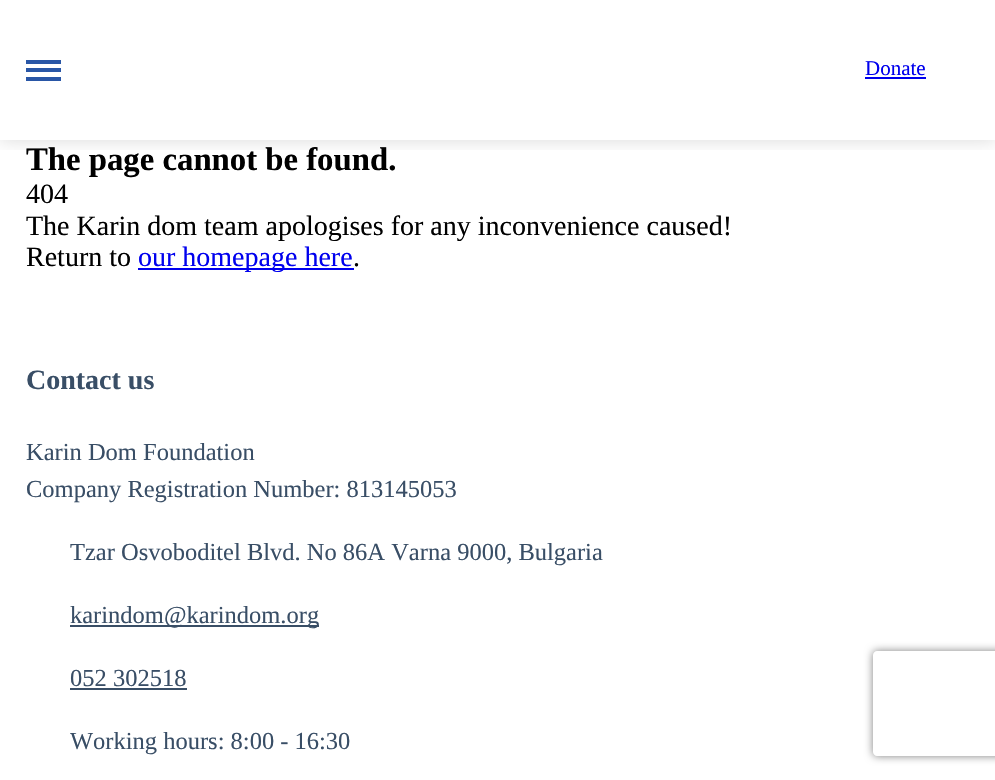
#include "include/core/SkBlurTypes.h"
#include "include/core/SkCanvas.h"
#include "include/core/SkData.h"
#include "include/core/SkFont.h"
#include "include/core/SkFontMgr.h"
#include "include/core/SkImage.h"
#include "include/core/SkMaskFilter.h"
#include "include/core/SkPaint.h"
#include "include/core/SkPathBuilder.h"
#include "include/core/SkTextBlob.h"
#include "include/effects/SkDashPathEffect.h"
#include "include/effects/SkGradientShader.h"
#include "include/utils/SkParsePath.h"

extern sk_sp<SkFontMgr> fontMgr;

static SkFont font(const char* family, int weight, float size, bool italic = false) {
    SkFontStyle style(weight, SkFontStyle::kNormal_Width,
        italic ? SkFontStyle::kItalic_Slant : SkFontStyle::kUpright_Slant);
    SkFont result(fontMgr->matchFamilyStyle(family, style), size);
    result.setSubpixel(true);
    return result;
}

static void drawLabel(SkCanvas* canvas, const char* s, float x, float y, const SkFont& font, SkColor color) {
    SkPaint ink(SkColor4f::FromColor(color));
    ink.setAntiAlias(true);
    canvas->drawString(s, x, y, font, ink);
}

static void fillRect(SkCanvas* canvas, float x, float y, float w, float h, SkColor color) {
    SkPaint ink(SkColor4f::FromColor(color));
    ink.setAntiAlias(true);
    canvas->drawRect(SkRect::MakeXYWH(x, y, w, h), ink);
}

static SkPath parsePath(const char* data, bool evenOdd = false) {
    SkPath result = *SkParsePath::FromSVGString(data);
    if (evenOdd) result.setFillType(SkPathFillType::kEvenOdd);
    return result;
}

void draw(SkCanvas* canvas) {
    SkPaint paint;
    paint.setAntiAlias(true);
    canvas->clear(0xFFFFFFFF);
    fillRect(canvas, 26, 60, 35, 4, 0xFF2956A6);
    fillRect(canvas, 26, 68, 35, 4, 0xFF2956A6);
    fillRect(canvas, 26, 77, 35, 4, 0xFF2956A6);
    SkFont font1 = font("Liberation Serif", 400, 21);
    drawLabel(canvas, "Donate", 865, 75, font1, 0xFF0000EE);
    fillRect(canvas, 865, 77, 61, 2, 0xFF0000EE);
    canvas->save();
    canvas->clipRect(SkRect::MakeXYWH(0, 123, 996, 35));
    canvas->clipRect(SkRect::MakeXYWH(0, 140, 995, 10));
    paint.setColor(0x26000000);
    paint.setMaskFilter(SkMaskFilter::MakeBlur(kNormal_SkBlurStyle, 9));
    canvas->drawRect(SkRect::MakeXYWH(0, 123, 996, 17), paint);
    paint.setMaskFilter(nullptr);
    canvas->restore();
    SkFont font2 = font("Liberation Serif", 700, 32.75f);
    drawLabel(canvas, "The page cannot be found.", 26, 170, font2, 0xFF000000);
    SkFont font3 = font("Liberation Serif", 400, 28);
    drawLabel(canvas, "404", 26, 203, font3, 0xFF000000);
    drawLabel(canvas, "The Karin dom team apologises for any inconvenience caused!", 26, 235, font3, 0xFF000000);
    drawLabel(canvas, "Return to", 26, 266, font3, 0xFF000000);
    fillRect(canvas, 138, 268, 216, 2, 0xFF0000EE);
    drawLabel(canvas, "our homepage here", 138, 266, font3, 0xFF0000EE);
    drawLabel(canvas, ".", 353, 266, font3, 0xFF000000);
    SkFont font4 = font("Liberation Serif", 700, 28);
    drawLabel(canvas, "Contact us", 26, 389, font4, 0xFF394E66);
    SkFont font5 = font("Liberation Serif", 400, 24.5f);
    drawLabel(canvas, "Karin Dom Foundation", 26, 460, font5, 0xFF394E66);
    drawLabel(canvas, "Company Registration Number: 813145053", 26, 497, font5, 0xFF394E66);
    drawLabel(canvas, "Tzar Osvoboditel Blvd. No 86A Varna 9000, Bulgaria", 70, 560, font5, 0xFF394E66);
    fillRect(canvas, 70, 625, 249, 2, 0xFF394E66);
    drawLabel(canvas, "karindom@karindom.org", 70, 623, font5, 0xFF394E66);
    drawLabel(canvas, "052 302518", 70, 686, font5, 0xFF394E66);
    fillRect(canvas, 70, 688, 117, 2, 0xFF394E66);
    drawLabel(canvas, "Working hours: 8:00 - 16:30", 70, 749, font5, 0xFF394E66);
    canvas->save();
    canvas->clipPath(parsePath("M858 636H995V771H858ZM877 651H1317C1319 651 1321 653 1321 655V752C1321 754 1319 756 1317 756H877C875 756 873 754 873 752V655C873 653 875 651 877 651Z", true), true);
    paint.setColor(0xFF808080);
    paint.setMaskFilter(SkMaskFilter::MakeBlur(kNormal_SkBlurStyle, 4.5f));
    canvas->drawRoundRect(SkRect::MakeXYWH(873, 651, 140, 105), 4, 4, paint);
    paint.setMaskFilter(nullptr);
    canvas->restore();
}
